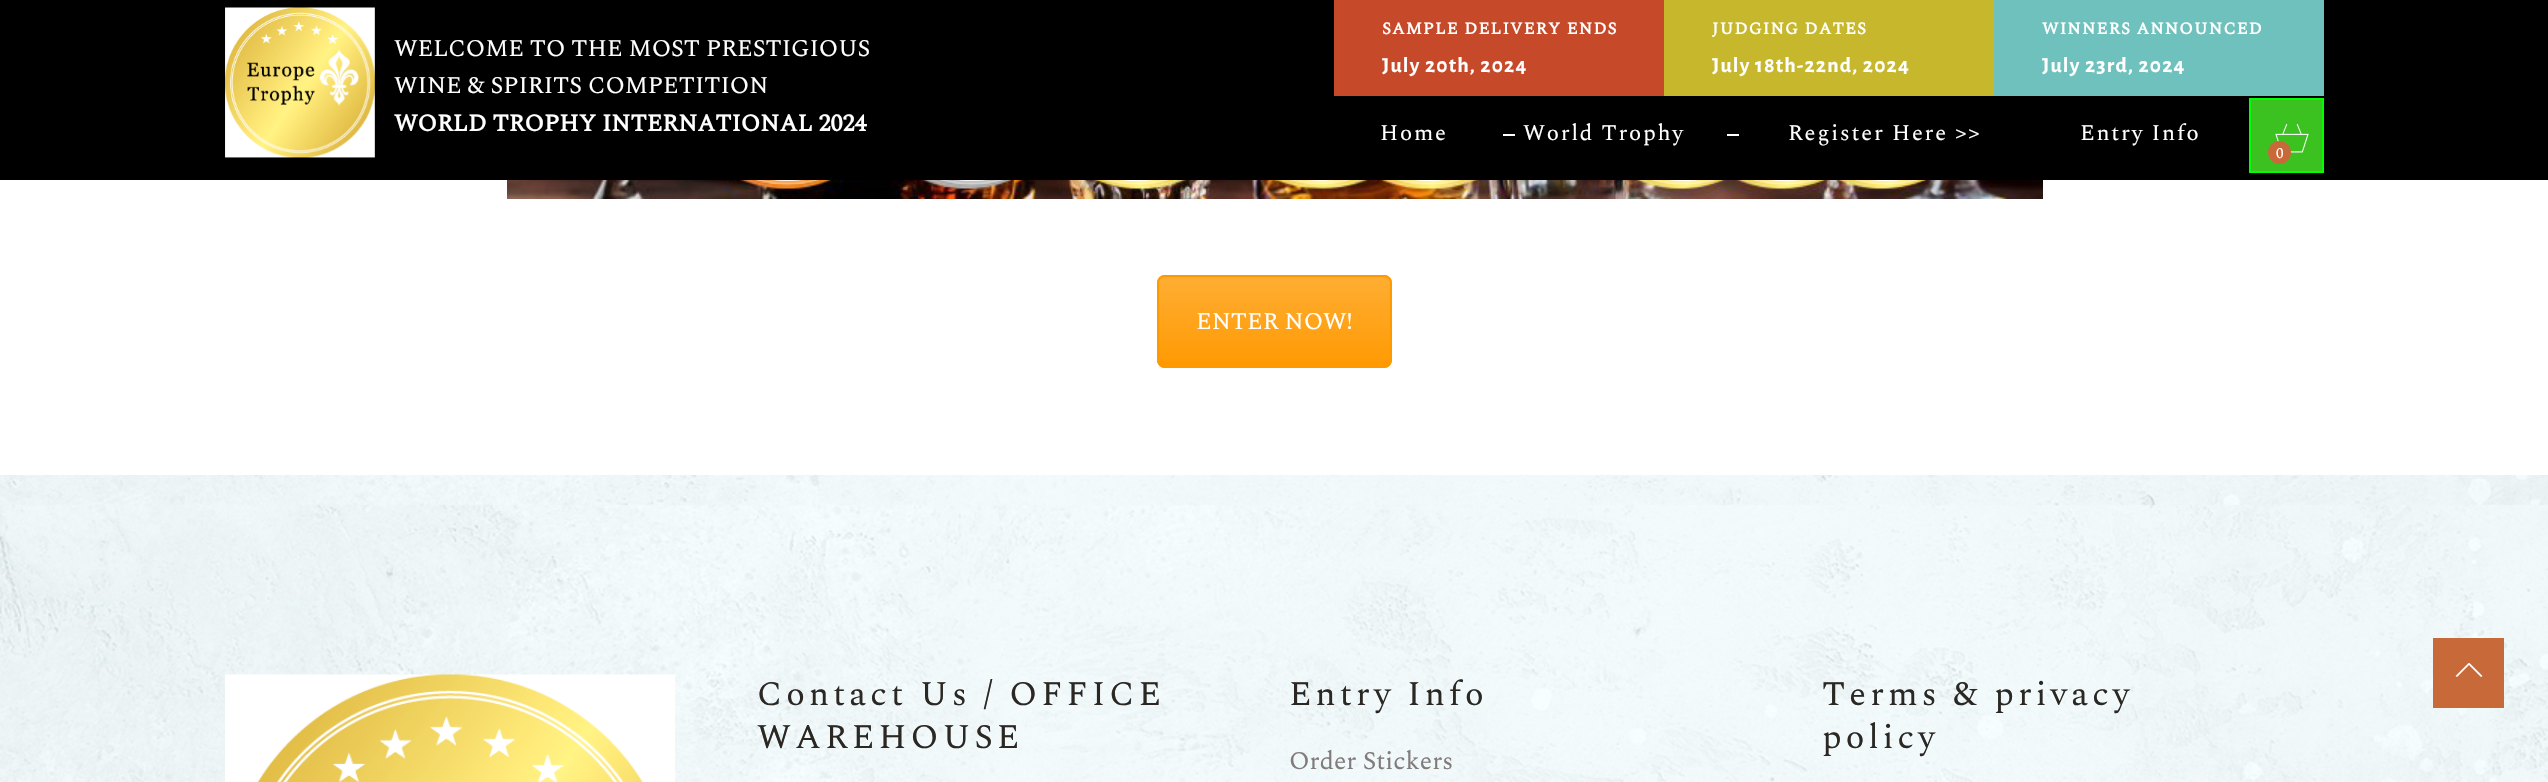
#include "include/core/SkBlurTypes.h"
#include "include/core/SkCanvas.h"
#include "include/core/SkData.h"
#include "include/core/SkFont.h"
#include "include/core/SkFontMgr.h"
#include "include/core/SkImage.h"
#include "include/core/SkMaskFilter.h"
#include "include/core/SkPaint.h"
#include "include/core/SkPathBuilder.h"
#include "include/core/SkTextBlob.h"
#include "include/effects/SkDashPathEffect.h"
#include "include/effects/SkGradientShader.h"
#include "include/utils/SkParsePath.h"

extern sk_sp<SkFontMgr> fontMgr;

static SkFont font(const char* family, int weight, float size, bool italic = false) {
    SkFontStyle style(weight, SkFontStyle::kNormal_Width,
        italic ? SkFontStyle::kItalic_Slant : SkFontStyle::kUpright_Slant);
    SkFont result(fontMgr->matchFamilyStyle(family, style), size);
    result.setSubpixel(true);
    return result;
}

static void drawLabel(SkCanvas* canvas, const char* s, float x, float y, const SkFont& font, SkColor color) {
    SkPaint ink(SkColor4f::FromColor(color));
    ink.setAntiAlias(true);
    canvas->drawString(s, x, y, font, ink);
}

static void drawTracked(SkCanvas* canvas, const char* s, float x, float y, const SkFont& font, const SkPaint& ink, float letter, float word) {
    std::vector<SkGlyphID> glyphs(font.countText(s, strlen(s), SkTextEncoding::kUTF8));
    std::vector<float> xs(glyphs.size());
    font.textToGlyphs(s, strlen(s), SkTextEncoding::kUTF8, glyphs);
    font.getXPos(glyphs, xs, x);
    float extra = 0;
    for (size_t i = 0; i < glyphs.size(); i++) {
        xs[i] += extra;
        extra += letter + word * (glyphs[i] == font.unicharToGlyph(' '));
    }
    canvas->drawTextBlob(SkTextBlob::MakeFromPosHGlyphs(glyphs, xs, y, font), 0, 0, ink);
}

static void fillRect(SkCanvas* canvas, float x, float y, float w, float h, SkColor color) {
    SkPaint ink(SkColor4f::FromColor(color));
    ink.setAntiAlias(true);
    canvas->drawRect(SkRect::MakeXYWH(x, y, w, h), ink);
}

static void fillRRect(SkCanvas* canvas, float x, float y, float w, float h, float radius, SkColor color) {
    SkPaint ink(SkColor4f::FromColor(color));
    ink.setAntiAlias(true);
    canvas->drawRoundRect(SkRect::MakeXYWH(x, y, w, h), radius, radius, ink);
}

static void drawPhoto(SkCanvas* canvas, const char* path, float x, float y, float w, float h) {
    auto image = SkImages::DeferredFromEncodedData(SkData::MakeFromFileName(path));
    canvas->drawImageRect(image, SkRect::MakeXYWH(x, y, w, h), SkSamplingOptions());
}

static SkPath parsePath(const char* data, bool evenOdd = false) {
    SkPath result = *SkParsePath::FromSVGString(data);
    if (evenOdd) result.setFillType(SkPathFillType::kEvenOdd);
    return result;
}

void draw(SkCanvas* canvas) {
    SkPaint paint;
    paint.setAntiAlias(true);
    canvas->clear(0xFFFFFFFF);
    fillRect(canvas, 0, 0, 2548, 180, 0xFF000000);
    drawPhoto(canvas, "assets/img1.png", 225, 7, 150, 151);
    SkFont font1 = font("Spectral", 400, 24);
    drawLabel(canvas, "WELCOME TO THE MOST PRESTIGIOUS", 394, 56, font1, 0xFFFFFFFF);
    drawLabel(canvas, "WINE & SPIRITS COMPETITION", 394, 93, font1, 0xFFFFFFFF);
    SkFont font2 = font("Spectral", 700, 24);
    drawLabel(canvas, "WORLD TROPHY INTERNATIONAL 2024", 394, 131, font2, 0xFFFFFFFF);
    fillRect(canvas, 1334, 0, 330, 96, 0xFFC64929);
    SkFont font3 = font("Spectral SC", 700, 16.75f);
    paint.setColor(0xFFFFFFFF);
    drawTracked(canvas, "SAMPLE DELIVERY ENDS", 1382, 34, font3, paint, 1.2f, 0);
    SkFont font4 = font("Alegreya Sans", 700, 21.5f);
    drawTracked(canvas, "July 20th, 2024", 1382, 72, font4, paint, 1.2f, 0);
    fillRect(canvas, 1664, 0, 330, 96, 0xFFC6B72D);
    drawTracked(canvas, "JUDGING DATES", 1712, 34, font3, paint, 1.2f, 0);
    drawTracked(canvas, "July 18th-22nd, 2024", 1712, 72, font4, paint, 1.2f, 0);
    fillRect(canvas, 1994, 0, 330, 96, 0xFF6EC1BC);
    drawTracked(canvas, "WINNERS ANNOUNCED", 2042, 34, font3, paint, 1.2f, 0);
    drawTracked(canvas, "July 23rd, 2024", 2042, 72, font4, paint, 1.2f, 0);
    SkFont font5 = font("Spectral SC", 400, 22.5f);
    drawTracked(canvas, "Home", 1380, 140, font5, paint, 1.75f, 0);
    fillRect(canvas, 1503, 134, 12, 2, 0xFFFFFFFF);
    drawTracked(canvas, "World Trophy", 1523, 140, font5, paint, 1.75f, 0);
    fillRect(canvas, 1727, 134, 12, 2, 0xFFFFFFFF);
    drawTracked(canvas, "Register Here >>", 1788, 140, font5, paint, 1.75f, 0);
    drawTracked(canvas, "Entry Info", 2080, 140, font5, paint, 1.75f, 0);
    paint.setColor(0xFF3BC220);
    canvas->drawRect(SkRect::MakeXYWH(2250, 99, 73, 73), paint);
    paint.setStroke(true);
    paint.setStrokeWidth(2);
    paint.setColor(0xFF00FF00);
    canvas->drawRect(SkRect::MakeXYWH(2250, 99, 73, 73), paint);
    drawPhoto(canvas, "assets/img2.png", 2275, 124, 34, 29);
    paint.setStroke(false);
    paint.setColor(0xFFC8693A);
    canvas->drawCircle(2279.5f, 152.5f, 11.5f, paint);
    SkFont font6 = font("Spectral", 400, 15);
    drawLabel(canvas, "0", 2276, 158, font6, 0xFFFFFFFF);
    drawPhoto(canvas, "assets/img3.png", 507, 180, 1536, 19);
    fillRRect(canvas, 1157, 275, 235, 93, 8, 0xFFFF9900);
    canvas->save();
    canvas->clipPath(parsePath("M1165 275H1384C1388.5 275 1392 278.5 1392 283V360C1392 364.5 1388.5 368 1384 368H1165C1160.5 368 1157 364.5 1157 360V283C1157 278.5 1160.5 275 1165 275Z"), true);
    {
        const SkColor colors[] = {0x33FFFFFF, 0x03FFFFFF};
        const float stops[] = {0, 1};
        const SkPoint ends[] = {{1274, 276}, {1274, 366}};
        paint.setShader(SkGradientShader::MakeLinear(ends, colors, stops, 2, SkTileMode::kClamp));
        paint.setAlpha(255);
    }
    canvas->drawRect(SkRect::MakeXYWH(1157, 276, 235, 85), paint);
    canvas->restore();
    paint.setStroke(true);
    paint.setShader(nullptr);
    paint.setColor(0xFFFF9900);
    canvas->drawRoundRect(SkRect::MakeXYWH(1158, 276, 233, 91), 7, 7, paint);
    drawLabel(canvas, "ENTER NOW!", 1196, 329, font1, 0xFFFFFFFF);
    drawPhoto(canvas, "assets/img4.png", 0, 475, 2548, 307);
    drawPhoto(canvas, "assets/img5.png", 225, 674, 450, 108);
    SkFont font7 = font("Spectral SC", 400, 34.5f);
    paint.setStroke(false);
    paint.setColor(0xFF2B2824);
    drawTracked(canvas, "Contact Us / OFFICE", 757, 705, font7, paint, 4.1f, 0);
    drawTracked(canvas, "WAREHOUSE", 757, 748, font7, paint, 4.1f, 0);
    drawTracked(canvas, "Entry Info", 1289, 705, font7, paint, 4.1f, 0);
    SkFont font8 = font("Spectral", 400, 25.5f);
    drawLabel(canvas, "Order Stickers", 1289, 769, font8, 0xFF817C7B);
    drawTracked(canvas, "Terms & privacy", 1822, 705, font7, paint, 4.1f, 0);
    drawTracked(canvas, "policy", 1822, 748, font7, paint, 4.1f, 0);
    fillRect(canvas, 2433, 638, 71, 70, 0xFFC8693A);
    paint.setColor(0xFFFFFFFF);
    canvas->drawPath(parsePath("M2482.5 676L2481 677L2469 665L2457 677L2455.5 676L2468.5 663H2469.5Z"), paint);
}
